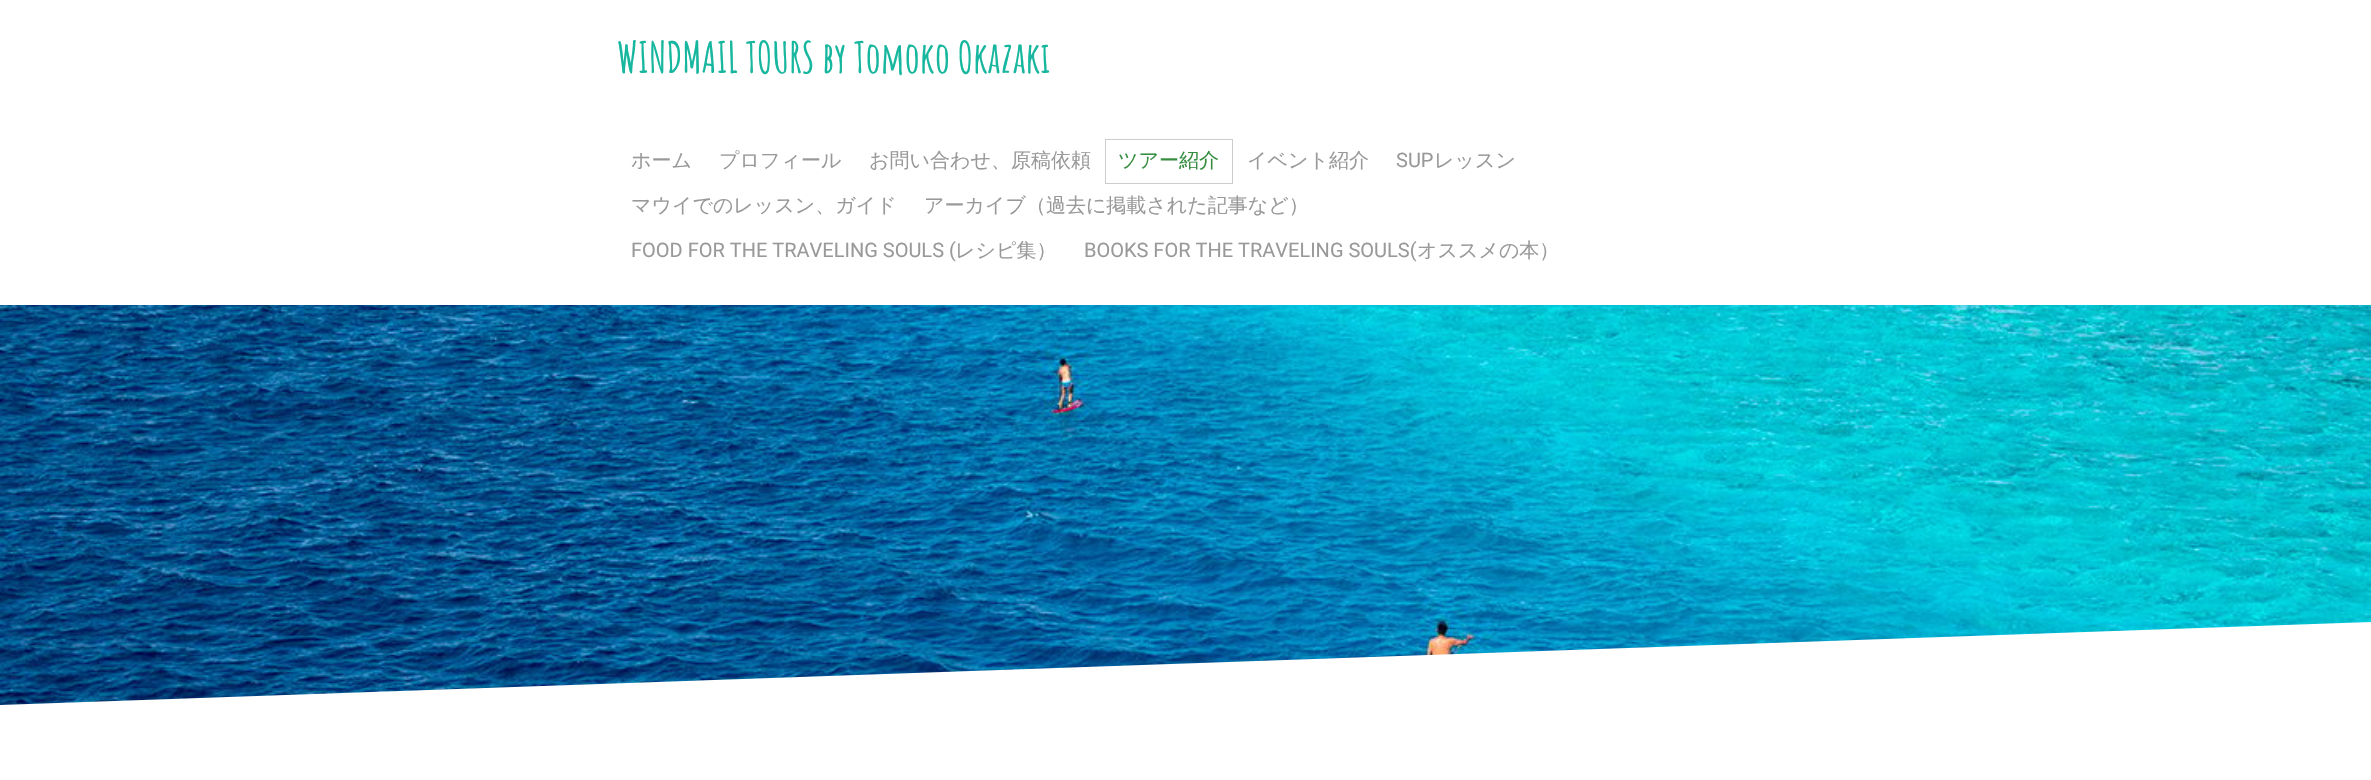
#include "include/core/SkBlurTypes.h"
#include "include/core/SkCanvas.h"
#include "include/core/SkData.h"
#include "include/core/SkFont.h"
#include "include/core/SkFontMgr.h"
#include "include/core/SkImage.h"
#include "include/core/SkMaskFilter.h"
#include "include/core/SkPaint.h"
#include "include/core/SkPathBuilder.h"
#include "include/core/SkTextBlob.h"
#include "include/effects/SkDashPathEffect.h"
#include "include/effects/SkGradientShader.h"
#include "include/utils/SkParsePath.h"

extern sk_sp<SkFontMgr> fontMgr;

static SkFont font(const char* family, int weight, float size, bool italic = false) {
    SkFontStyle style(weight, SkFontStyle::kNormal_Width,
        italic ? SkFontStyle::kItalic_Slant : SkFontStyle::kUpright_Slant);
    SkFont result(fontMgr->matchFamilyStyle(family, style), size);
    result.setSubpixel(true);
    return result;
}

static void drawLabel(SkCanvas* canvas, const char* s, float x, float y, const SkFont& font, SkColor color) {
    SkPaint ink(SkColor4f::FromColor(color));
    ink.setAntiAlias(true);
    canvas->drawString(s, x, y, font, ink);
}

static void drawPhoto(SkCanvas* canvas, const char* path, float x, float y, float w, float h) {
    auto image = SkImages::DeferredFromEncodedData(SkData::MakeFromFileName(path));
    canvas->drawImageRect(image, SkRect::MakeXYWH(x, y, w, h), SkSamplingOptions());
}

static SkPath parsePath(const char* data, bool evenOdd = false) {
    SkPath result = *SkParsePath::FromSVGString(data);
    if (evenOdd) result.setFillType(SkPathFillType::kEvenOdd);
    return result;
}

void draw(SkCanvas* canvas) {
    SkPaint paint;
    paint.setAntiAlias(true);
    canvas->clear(0xFFFFFFFF);
    drawPhoto(canvas, "assets/img1.png", 0, 305, 2371, 400);
    SkFont font1 = font("Amatic SC", 700, 42.5f);
    drawLabel(canvas, "WINDMAIL TOURS by Tomoko Okazaki", 617, 73, font1, 0xFF17B69E);
    SkFont font2 = font("WenQuanYi Zen Hei", 500, 20);
    drawLabel(canvas, "ホーム", 631, 167, font2, 0xFF999999);
    drawLabel(canvas, "プロフィール", 719, 167, font2, 0xFF999999);
    drawLabel(canvas, "お問い合わせ、原稿依頼", 869, 167, font2, 0xFF999999);
    paint.setStroke(true);
    paint.setStrokeWidth(1);
    paint.setColor(0xFFCCCCCC);
    canvas->drawRect(SkRect::MakeXYWH(1105.5f, 139.5f, 127, 44), paint);
    drawLabel(canvas, "ツアー紹介", 1118, 167, font2, 0xFF358D3F);
    drawLabel(canvas, "イベント紹介", 1247, 167, font2, 0xFF999999);
    SkFont font3 = font("Roboto", 400, 20);
    drawLabel(canvas, "SUP", 1396, 167, font3, 0xFF999999);
    drawLabel(canvas, "レッスン", 1434, 167, font2, 0xFF999999);
    drawLabel(canvas, "マウイでのレッスン、ガイド", 631, 212, font2, 0xFF999999);
    drawLabel(canvas, "アーカイブ（過去に掲載された記事など）", 924, 212, font2, 0xFF999999);
    drawLabel(canvas, "FOOD FOR THE TRAVELING SOULS (", 631, 257, font3, 0xFF999999);
    drawLabel(canvas, "レシピ集）", 955, 257, font2, 0xFF999999);
    drawLabel(canvas, "BOOKS FOR THE TRAVELING SOULS(", 1084, 257, font3, 0xFF999999);
    drawLabel(canvas, "オススメの本）", 1417, 257, font2, 0xFF999999);
    paint.setStroke(false);
    paint.setColor(0xFFFFFFFF);
    canvas->drawPath(parsePath("M0 705L2371 622V747L0 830Z"), paint);
}
